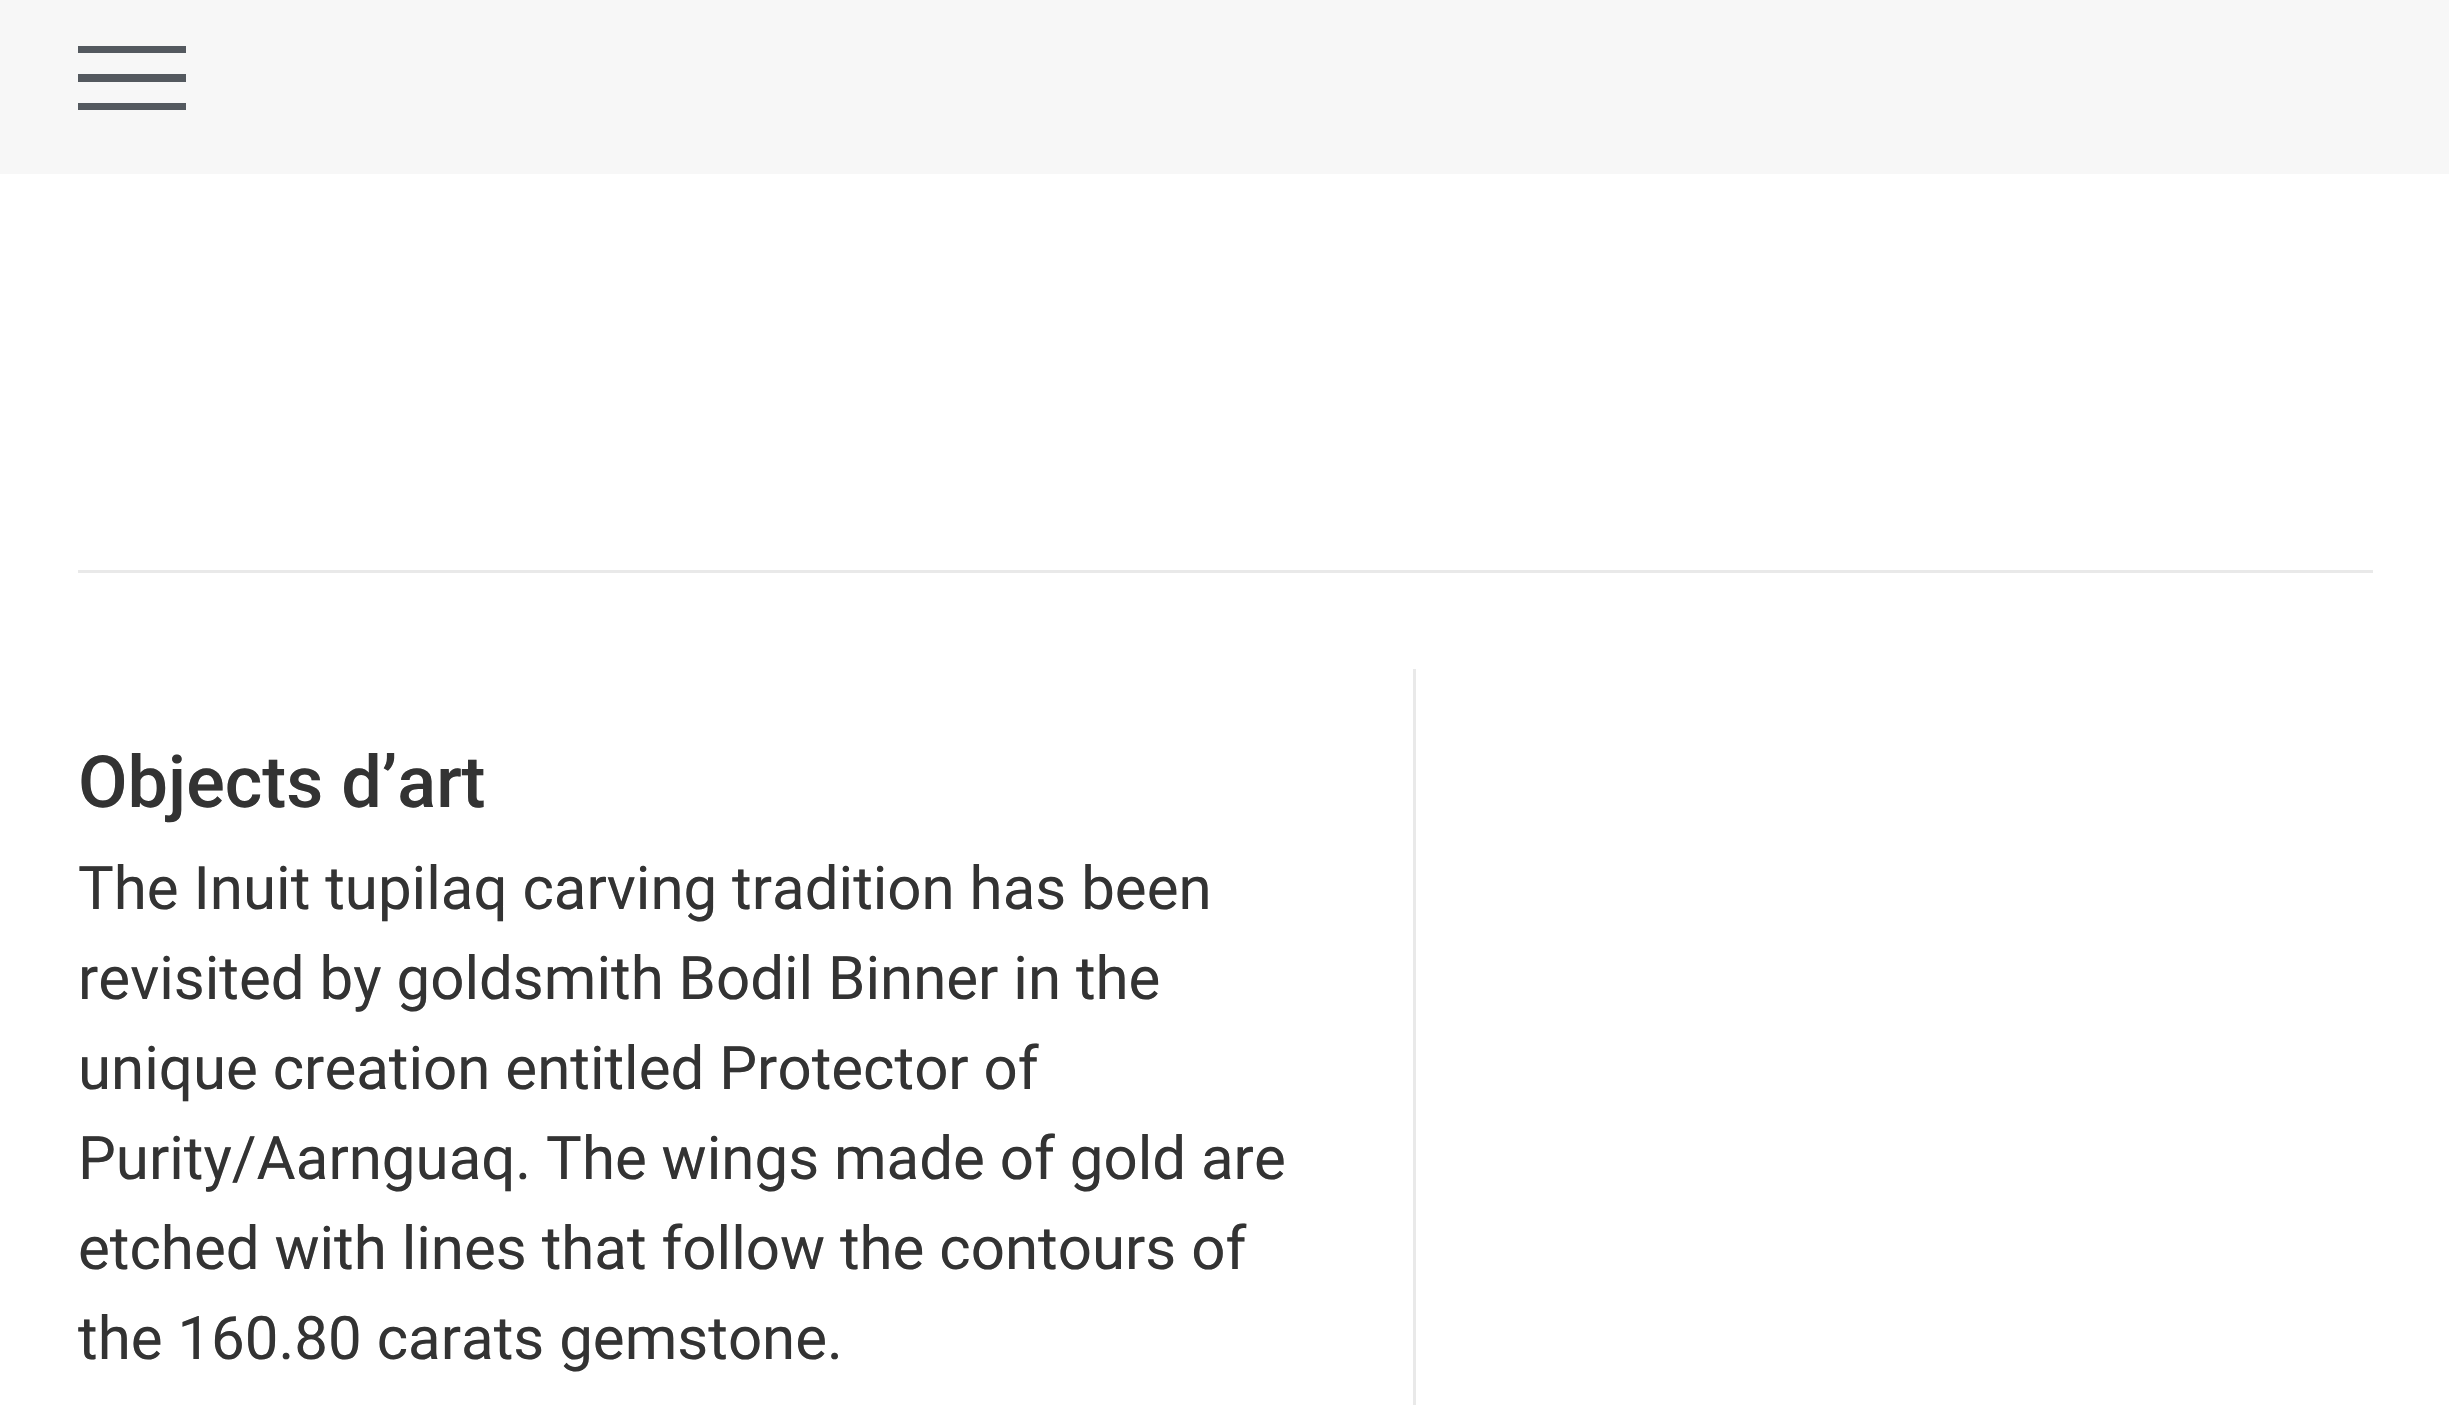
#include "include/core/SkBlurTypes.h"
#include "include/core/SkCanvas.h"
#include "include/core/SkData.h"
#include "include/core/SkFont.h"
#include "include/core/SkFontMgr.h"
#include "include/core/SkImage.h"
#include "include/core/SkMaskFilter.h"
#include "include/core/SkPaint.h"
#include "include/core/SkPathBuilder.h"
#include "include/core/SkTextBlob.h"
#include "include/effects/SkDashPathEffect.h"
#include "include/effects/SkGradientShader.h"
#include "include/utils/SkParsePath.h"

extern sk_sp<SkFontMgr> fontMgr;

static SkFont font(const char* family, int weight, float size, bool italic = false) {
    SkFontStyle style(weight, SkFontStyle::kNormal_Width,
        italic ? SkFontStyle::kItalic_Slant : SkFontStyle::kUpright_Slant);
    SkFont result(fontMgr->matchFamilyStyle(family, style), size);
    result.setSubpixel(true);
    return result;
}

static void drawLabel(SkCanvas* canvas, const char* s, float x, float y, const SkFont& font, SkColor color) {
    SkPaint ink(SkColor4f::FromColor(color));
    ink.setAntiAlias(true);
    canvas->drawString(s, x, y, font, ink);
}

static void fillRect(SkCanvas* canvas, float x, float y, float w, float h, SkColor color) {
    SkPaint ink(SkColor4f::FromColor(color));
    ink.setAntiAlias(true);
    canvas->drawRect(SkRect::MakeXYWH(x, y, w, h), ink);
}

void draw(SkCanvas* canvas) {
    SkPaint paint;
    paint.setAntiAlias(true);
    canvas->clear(0xFFFFFFFF);
    fillRect(canvas, 0, 0, 2449, 174, 0xFFF7F7F7);
    fillRect(canvas, 78, 46, 108, 7, 0xFF54595F);
    fillRect(canvas, 78, 74, 108, 8, 0xFF54595F);
    fillRect(canvas, 78, 103, 108, 7, 0xFF54595F);
    fillRect(canvas, 78, 570, 2295, 3, 0xFFE9E9E9);
    fillRect(canvas, 1413, 669, 3, 736, 0xFFE9E9E9);
    SkFont font1 = font("Roboto", 500, 72);
    drawLabel(canvas, "Objects d’art", 78, 807, font1, 0xFF333333);
    SkFont font2 = font("Roboto", 400, 60);
    drawLabel(canvas, "The Inuit tupilaq carving tradition has been", 78, 909, font2, 0xFF333333);
    drawLabel(canvas, "revisited by goldsmith Bodil Binner in the", 78, 999, font2, 0xFF333333);
    drawLabel(canvas, "unique creation entitled Protector of", 78, 1089, font2, 0xFF333333);
    drawLabel(canvas, "Purity/Aarnguaq. The wings made of gold are", 78, 1179, font2, 0xFF333333);
    drawLabel(canvas, "etched with lines that follow the contours of", 78, 1269, font2, 0xFF333333);
    drawLabel(canvas, "the 160.80 carats gemstone.", 78, 1359, font2, 0xFF333333);
}
